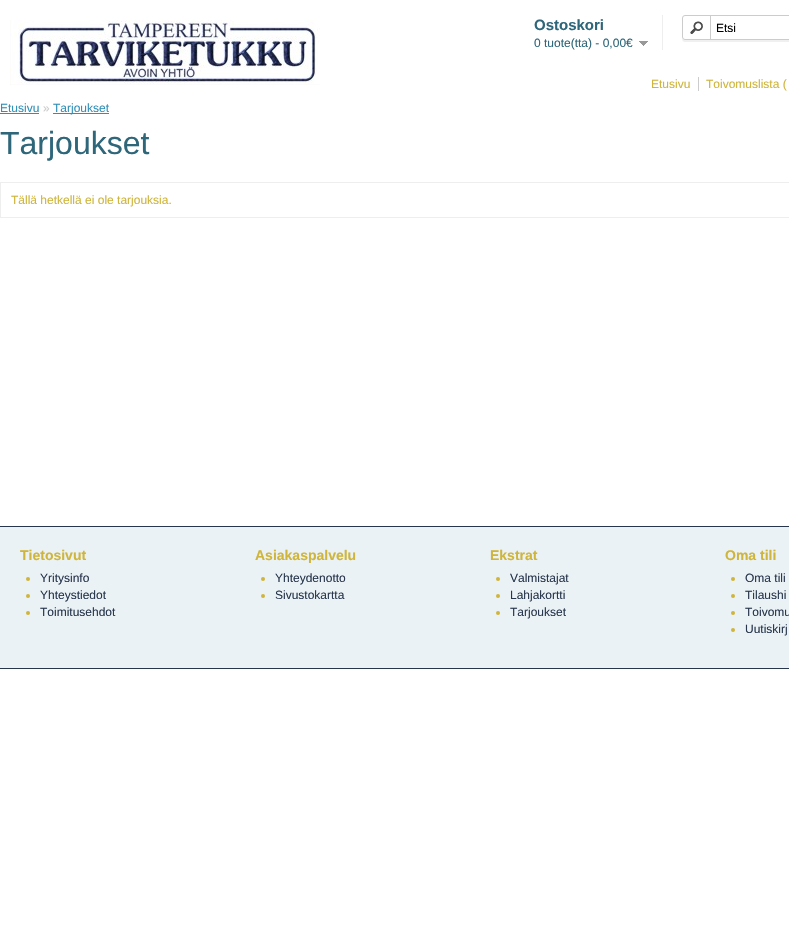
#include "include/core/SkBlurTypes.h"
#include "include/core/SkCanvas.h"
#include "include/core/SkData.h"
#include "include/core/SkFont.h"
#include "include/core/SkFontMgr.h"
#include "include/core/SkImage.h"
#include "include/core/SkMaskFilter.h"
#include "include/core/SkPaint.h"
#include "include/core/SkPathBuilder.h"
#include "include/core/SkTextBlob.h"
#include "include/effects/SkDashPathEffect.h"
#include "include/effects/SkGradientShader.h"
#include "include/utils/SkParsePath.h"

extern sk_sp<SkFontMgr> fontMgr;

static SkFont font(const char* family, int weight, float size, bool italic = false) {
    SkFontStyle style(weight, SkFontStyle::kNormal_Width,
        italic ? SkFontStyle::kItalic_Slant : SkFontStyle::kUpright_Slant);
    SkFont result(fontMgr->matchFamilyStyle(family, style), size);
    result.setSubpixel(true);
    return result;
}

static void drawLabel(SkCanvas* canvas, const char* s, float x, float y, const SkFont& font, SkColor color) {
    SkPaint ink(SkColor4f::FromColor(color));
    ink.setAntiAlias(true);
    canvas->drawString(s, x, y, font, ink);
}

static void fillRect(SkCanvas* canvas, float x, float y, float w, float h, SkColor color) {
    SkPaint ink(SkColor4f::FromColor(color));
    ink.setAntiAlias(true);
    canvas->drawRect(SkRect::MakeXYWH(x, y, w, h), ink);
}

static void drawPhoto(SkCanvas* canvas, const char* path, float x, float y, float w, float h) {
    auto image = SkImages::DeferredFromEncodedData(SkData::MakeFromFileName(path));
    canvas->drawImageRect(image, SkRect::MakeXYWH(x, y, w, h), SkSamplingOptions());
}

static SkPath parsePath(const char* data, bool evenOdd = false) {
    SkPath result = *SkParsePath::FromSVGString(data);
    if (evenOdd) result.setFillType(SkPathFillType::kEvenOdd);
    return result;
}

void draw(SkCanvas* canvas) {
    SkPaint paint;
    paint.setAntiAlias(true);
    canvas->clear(0xFFFFFFFF);
    drawPhoto(canvas, "assets/img1.png", 10, 20, 310, 65);
    fillRect(canvas, 662, 15, 1, 35, 0xFFEEEEEE);
    SkFont font1 = font("Liberation Sans", 700, 15);
    drawLabel(canvas, "Ostoskori", 534, 30, font1, 0xFF2E667A);
    SkFont font2 = font("Liberation Sans", 400, 12);
    drawLabel(canvas, "0 tuote(tta) - 0,00€", 534, 47, font2, 0xFF2E667A);
    drawPhoto(canvas, "assets/img2.png", 639, 41, 9, 5);
    paint.setColor(0xFFF0F0F0);
    canvas->drawPath(parsePath("M682 37C682 39 682 42 685 42H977C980 42 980 39 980 37C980 39 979 40 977 40H685C683 40 682 39 682 37Z"), paint);
    paint.setStroke(true);
    paint.setStrokeWidth(1);
    paint.setColor(0xFFCCCCCC);
    canvas->drawRoundRect(SkRect::MakeXYWH(682.5f, 15.5f, 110, 24), 2.5f, 2.5f, paint);
    drawPhoto(canvas, "assets/img3.png", 690, 21, 13, 13);
    fillRect(canvas, 710, 15, 1, 24, 0xFFCCCCCC);
    drawLabel(canvas, "Etsi", 716, 32, font2, 0xFF000000);
    drawLabel(canvas, "Etusivu", 651, 88, font2, 0xFFCFB53B);
    fillRect(canvas, 698, 77, 1, 14, 0xFFCCCCCC);
    drawLabel(canvas, "Toivomuslista (", 706, 88, font2, 0xFFCFB53B);
    drawLabel(canvas, "Etusivu", 0, 112, font2, 0xFF308FB8);
    fillRect(canvas, 0, 113, 39, 1, 0xFF308FB8);
    drawLabel(canvas, "»", 43, 112, font2, 0xFFCCCCCC);
    fillRect(canvas, 53, 113, 56, 1, 0xFF308FB8);
    drawLabel(canvas, "Tarjoukset", 53, 112, font2, 0xFF308FB8);
    SkFont font3 = font("Liberation Sans", 400, 32);
    drawLabel(canvas, "Tarjoukset", 0, 154, font3, 0xFF2E667A);
    paint.setColor(0xFFEEEEEE);
    canvas->drawRect(SkRect::MakeXYWH(0.5f, 182.5f, 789, 35), paint);
    drawLabel(canvas, "Tällä hetkellä ei ole tarjouksia.", 11, 204, font2, 0xFFCFB53B);
    fillRect(canvas, 0, 527, 789, 141, 0xFFEAF2F5);
    fillRect(canvas, 0, 526, 789, 1, 0xFF28364D);
    fillRect(canvas, 0, 668, 789, 1, 0xFF28364D);
    SkFont font4 = font("Liberation Sans", 700, 14);
    drawLabel(canvas, "Tietosivut", 20, 560, font4, 0xFFCFB53B);
    paint.setStroke(false);
    paint.setColor(0xFFCFB53B);
    canvas->drawCircle(28, 579, 2, paint);
    drawLabel(canvas, "Yritysinfo", 40, 582, font2, 0xFF28364D);
    canvas->drawCircle(28, 596, 2, paint);
    drawLabel(canvas, "Yhteystiedot", 40, 599, font2, 0xFF28364D);
    canvas->drawCircle(28, 613, 2, paint);
    drawLabel(canvas, "Toimitusehdot", 40, 616, font2, 0xFF28364D);
    drawLabel(canvas, "Asiakaspalvelu", 255, 560, font4, 0xFFCFB53B);
    canvas->drawCircle(263, 579, 2, paint);
    drawLabel(canvas, "Yhteydenotto", 275, 582, font2, 0xFF28364D);
    canvas->drawCircle(263, 596, 2, paint);
    drawLabel(canvas, "Sivustokartta", 275, 599, font2, 0xFF28364D);
    drawLabel(canvas, "Ekstrat", 490, 560, font4, 0xFFCFB53B);
    canvas->drawCircle(498, 579, 2, paint);
    drawLabel(canvas, "Valmistajat", 510, 582, font2, 0xFF28364D);
    canvas->drawCircle(498, 596, 2, paint);
    drawLabel(canvas, "Lahjakortti", 510, 599, font2, 0xFF28364D);
    canvas->drawCircle(498, 613, 2, paint);
    drawLabel(canvas, "Tarjoukset", 510, 616, font2, 0xFF28364D);
    drawLabel(canvas, "Oma tili", 725, 560, font4, 0xFFCFB53B);
    canvas->drawCircle(733, 579, 2, paint);
    drawLabel(canvas, "Oma tili", 745, 582, font2, 0xFF28364D);
    canvas->drawCircle(733, 596, 2, paint);
    drawLabel(canvas, "Tilaushi", 745, 599, font2, 0xFF28364D);
    canvas->drawCircle(733, 613, 2, paint);
    drawLabel(canvas, "Toivomu", 745, 616, font2, 0xFF28364D);
    canvas->drawCircle(733, 630, 2, paint);
    drawLabel(canvas, "Uutiskirj", 745, 633, font2, 0xFF28364D);
}
